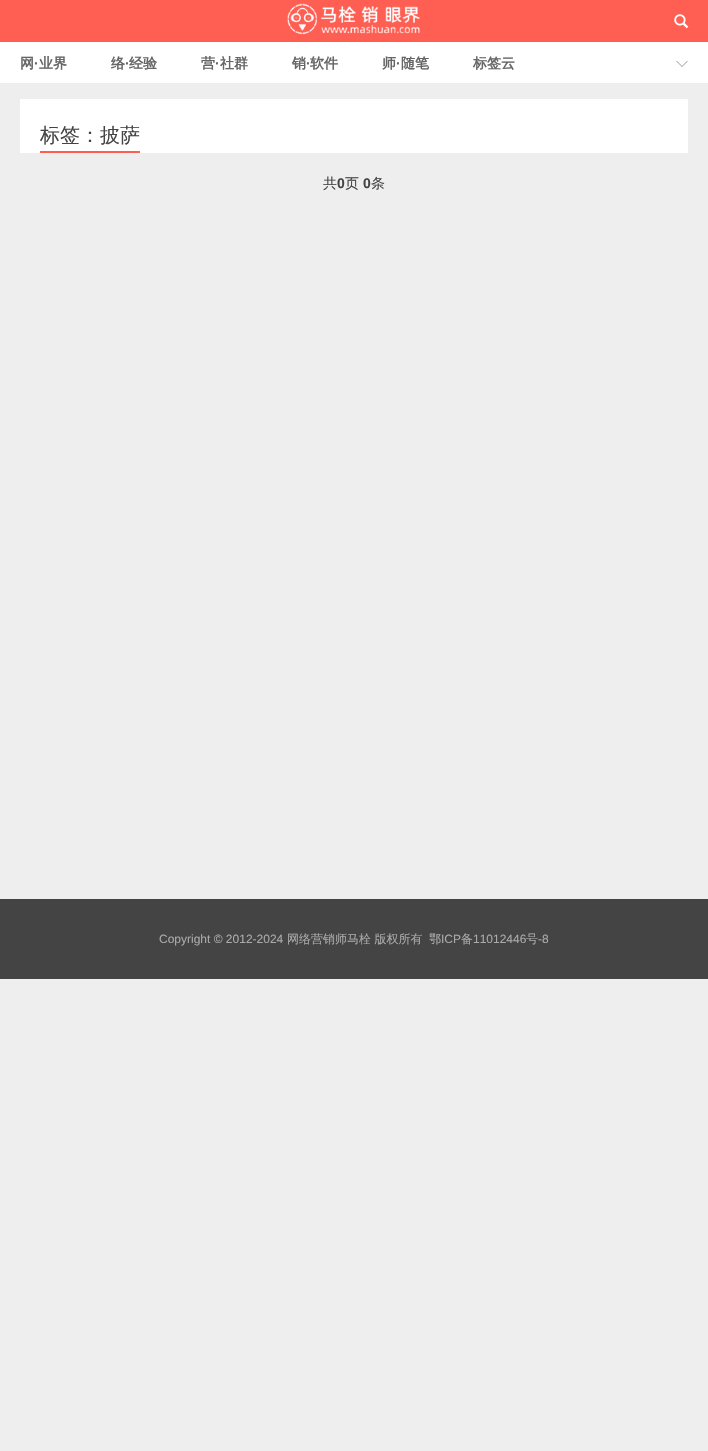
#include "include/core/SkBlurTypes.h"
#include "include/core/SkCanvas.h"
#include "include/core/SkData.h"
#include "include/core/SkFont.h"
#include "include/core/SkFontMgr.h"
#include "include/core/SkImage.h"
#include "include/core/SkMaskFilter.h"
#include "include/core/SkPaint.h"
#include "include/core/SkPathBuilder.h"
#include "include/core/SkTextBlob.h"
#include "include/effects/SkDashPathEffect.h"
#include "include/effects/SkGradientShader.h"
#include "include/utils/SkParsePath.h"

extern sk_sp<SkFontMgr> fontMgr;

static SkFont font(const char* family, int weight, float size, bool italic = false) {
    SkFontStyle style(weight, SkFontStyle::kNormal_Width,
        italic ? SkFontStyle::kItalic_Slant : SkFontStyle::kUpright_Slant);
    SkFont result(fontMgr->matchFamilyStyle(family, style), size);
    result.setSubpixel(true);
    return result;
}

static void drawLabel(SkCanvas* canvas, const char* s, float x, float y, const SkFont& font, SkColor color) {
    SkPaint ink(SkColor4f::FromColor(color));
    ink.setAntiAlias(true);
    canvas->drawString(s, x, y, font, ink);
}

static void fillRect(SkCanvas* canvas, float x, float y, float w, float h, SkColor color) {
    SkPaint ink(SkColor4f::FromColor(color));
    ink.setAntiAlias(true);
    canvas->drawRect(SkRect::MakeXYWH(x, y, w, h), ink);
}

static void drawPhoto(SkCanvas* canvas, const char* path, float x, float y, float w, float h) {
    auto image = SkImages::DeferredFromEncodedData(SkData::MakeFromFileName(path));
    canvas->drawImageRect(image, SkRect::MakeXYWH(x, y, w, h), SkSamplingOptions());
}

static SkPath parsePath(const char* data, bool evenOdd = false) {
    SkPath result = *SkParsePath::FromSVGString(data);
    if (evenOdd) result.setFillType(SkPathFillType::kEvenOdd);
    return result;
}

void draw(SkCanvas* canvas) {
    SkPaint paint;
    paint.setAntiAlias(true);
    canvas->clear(0xFFEEEEEE);
    fillRect(canvas, 0, 42, 708, 41, 0xFFFFFFFF);
    fillRect(canvas, 0, 0, 708, 42, 0xFFFF5E52);
    drawPhoto(canvas, "assets/img1.png", 287, 3, 133, 32);
    drawPhoto(canvas, "assets/img2.png", 674, 14, 15, 15);
    SkFont font1 = font("WenQuanYi Zen Hei", 700, 14);
    drawLabel(canvas, "网", 20, 68, font1, 0xFF666666);
    SkFont font2 = font("Liberation Sans", 700, 14);
    drawLabel(canvas, "·", 34, 68, font2, 0xFF666666);
    drawLabel(canvas, "业界", 39, 68, font1, 0xFF666666);
    drawLabel(canvas, "络", 111, 68, font1, 0xFF666666);
    drawLabel(canvas, "·", 125, 68, font2, 0xFF666666);
    drawLabel(canvas, "经验", 129, 68, font1, 0xFF666666);
    drawLabel(canvas, "营", 201, 68, font1, 0xFF666666);
    drawLabel(canvas, "·", 215, 68, font2, 0xFF666666);
    drawLabel(canvas, "社群", 220, 68, font1, 0xFF666666);
    drawLabel(canvas, "销", 292, 68, font1, 0xFF666666);
    drawLabel(canvas, "·", 306, 68, font2, 0xFF666666);
    drawLabel(canvas, "软件", 310, 68, font1, 0xFF666666);
    drawLabel(canvas, "师", 382, 68, font1, 0xFF666666);
    drawLabel(canvas, "·", 396, 68, font2, 0xFF666666);
    drawLabel(canvas, "随笔", 401, 68, font1, 0xFF666666);
    drawLabel(canvas, "标签云", 473, 68, font1, 0xFF666666);
    paint.setColor(0xFF999999);
    canvas->drawPath(parsePath("M676 61H688L682 67Z"), paint);
    paint.setColor(0xFFFFFFFF);
    canvas->drawPath(parsePath("M676 60H688L682 66Z"), paint);
    fillRect(canvas, 20, 99, 668, 54, 0xFFFFFFFF);
    fillRect(canvas, 40, 151, 100, 2, 0xFFFF5E52);
    SkFont font3 = font("WenQuanYi Zen Hei", 500, 20);
    drawLabel(canvas, "标签：披萨", 40, 142, font3, 0xFF444444);
    SkFont font4 = font("WenQuanYi Zen Hei", 500, 14);
    drawLabel(canvas, "共", 323, 188, font4, 0xFF444444);
    drawLabel(canvas, "0", 337, 188, font2, 0xFF444444);
    drawLabel(canvas, "页", 345, 188, font4, 0xFF444444);
    drawLabel(canvas, "0", 363, 188, font2, 0xFF444444);
    drawLabel(canvas, "条", 371, 188, font4, 0xFF444444);
    fillRect(canvas, 0, 899, 708, 80, 0xFF444444);
    SkFont font5 = font("Liberation Sans", 400, 12);
    drawLabel(canvas, "Copyright © 2012-2024", 159, 943, font5, 0xFFAAAAAA);
    SkFont font6 = font("WenQuanYi Zen Hei", 500, 12);
    drawLabel(canvas, "网络营销师马栓 版权所有", 287, 943, font6, 0xFFAAAAAA);
    drawLabel(canvas, "鄂", 429, 943, font6, 0xFFAAAAAA);
    drawLabel(canvas, "ICP", 441, 943, font5, 0xFFAAAAAA);
    drawLabel(canvas, "备", 461, 943, font6, 0xFFAAAAAA);
    drawLabel(canvas, "11012446", 473, 943, font5, 0xFFAAAAAA);
    drawLabel(canvas, "号", 526, 943, font6, 0xFFAAAAAA);
    drawLabel(canvas, "-8", 538, 943, font5, 0xFFAAAAAA);
}
